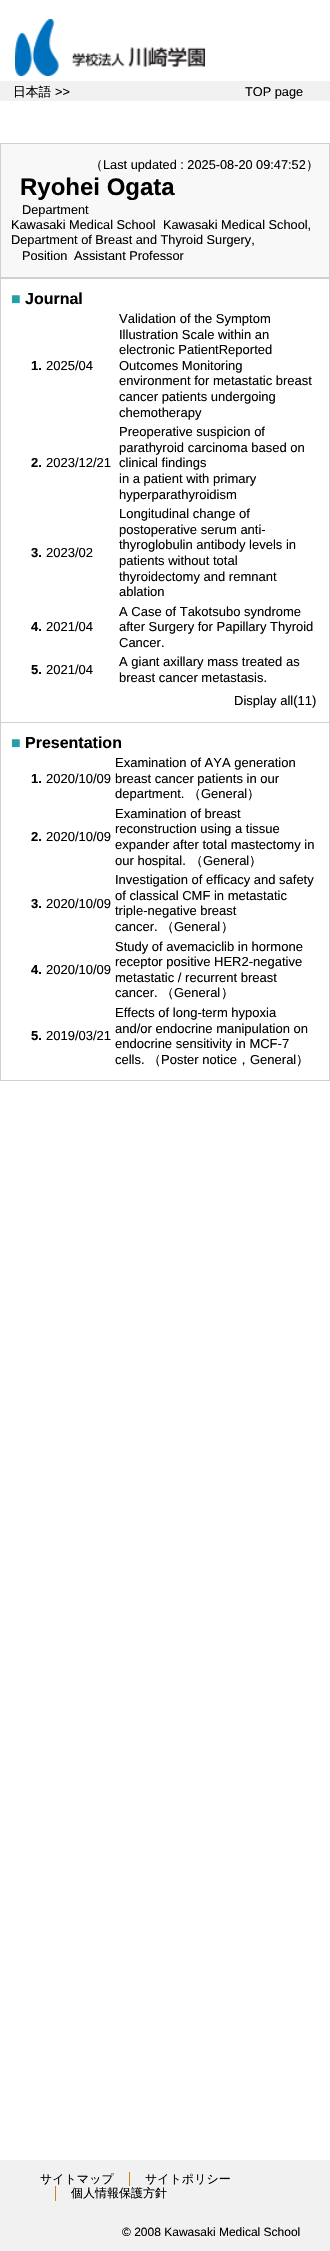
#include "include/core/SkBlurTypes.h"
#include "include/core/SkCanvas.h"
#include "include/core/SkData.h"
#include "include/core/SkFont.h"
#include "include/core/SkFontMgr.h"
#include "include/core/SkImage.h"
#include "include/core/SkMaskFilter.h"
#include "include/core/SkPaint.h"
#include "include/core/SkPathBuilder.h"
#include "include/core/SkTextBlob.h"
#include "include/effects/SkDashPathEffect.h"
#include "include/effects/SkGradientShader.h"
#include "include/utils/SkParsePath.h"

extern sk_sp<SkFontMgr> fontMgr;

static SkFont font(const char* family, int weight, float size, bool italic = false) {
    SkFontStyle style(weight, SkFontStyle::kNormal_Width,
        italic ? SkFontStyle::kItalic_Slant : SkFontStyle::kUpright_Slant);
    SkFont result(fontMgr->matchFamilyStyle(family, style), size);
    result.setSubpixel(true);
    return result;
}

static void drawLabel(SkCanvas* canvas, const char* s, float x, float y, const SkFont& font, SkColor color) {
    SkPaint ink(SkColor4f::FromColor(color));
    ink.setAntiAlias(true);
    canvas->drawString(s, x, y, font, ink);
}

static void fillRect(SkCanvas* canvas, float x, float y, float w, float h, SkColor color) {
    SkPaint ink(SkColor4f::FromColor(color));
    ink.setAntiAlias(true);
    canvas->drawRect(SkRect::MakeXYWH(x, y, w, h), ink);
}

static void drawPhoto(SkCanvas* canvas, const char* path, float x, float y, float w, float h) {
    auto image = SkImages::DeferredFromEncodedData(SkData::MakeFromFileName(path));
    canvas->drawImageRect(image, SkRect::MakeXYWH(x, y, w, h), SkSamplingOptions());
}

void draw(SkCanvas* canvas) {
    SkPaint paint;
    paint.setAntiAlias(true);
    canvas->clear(0xFFFFFFFF);
    drawPhoto(canvas, "assets/img1.png", 15, 19, 190, 57);
    fillRect(canvas, 0, 81, 330, 20, 0xFFF1F1F1);
    SkFont font1 = font("WenQuanYi Zen Hei", 500, 12.75f);
    drawLabel(canvas, "日本語", 13, 96, font1, 0xFF000000);
    SkFont font2 = font("Liberation Sans", 400, 12.75f);
    drawLabel(canvas, ">>", 55, 96, font2, 0xFF000000);
    drawLabel(canvas, "TOP page", 245, 96, font2, 0xFF000000);
    fillRect(canvas, 0, 143, 330, 938, 0xFFD0D0D0);
    fillRect(canvas, 1, 144, 328, 133, 0xFFF8F8F8);
    drawLabel(canvas, "（", 90, 169, font1, 0xFF000000);
    drawLabel(canvas, "Last updated : 2025-08-20 09:47:52", 103, 169, font2, 0xFF000000);
    drawLabel(canvas, "）", 306, 169, font1, 0xFF000000);
    SkFont font3 = font("Liberation Sans", 700, 24);
    drawLabel(canvas, "Ryohei Ogata", 20, 195, font3, 0xFF000000);
    drawLabel(canvas, "Department", 22, 214, font2, 0xFF000000);
    drawLabel(canvas, "Kawasaki Medical School", 11, 229, font2, 0xFF000000);
    drawLabel(canvas, "Kawasaki Medical School,", 163, 229, font2, 0xFF000000);
    drawLabel(canvas, "Department of Breast and Thyroid Surgery,", 11, 244, font2, 0xFF000000);
    drawLabel(canvas, "Position", 22, 260, font2, 0xFF000000);
    drawLabel(canvas, "Assistant Professor", 74, 260, font2, 0xFF000000);
    fillRect(canvas, 1, 279, 328, 443, 0xFFFFFFFF);
    SkFont font4 = font("Liberation Sans", 400, 16);
    drawLabel(canvas, "■", 11, 304, font4, 0xFF24A1A4);
    SkFont font5 = font("Liberation Sans", 700, 16);
    drawLabel(canvas, "Journal", 25, 304, font5, 0xFF000000);
    SkFont font6 = font("Liberation Sans", 700, 13);
    drawLabel(canvas, "1.", 31, 370, font6, 0xFF000000);
    SkFont font7 = font("Liberation Sans", 400, 13);
    drawLabel(canvas, "2025/04", 46, 370, font7, 0xFF000000);
    drawLabel(canvas, "Validation of the Symptom", 119, 323, font7, 0xFF000000);
    drawLabel(canvas, "Illustration Scale within an", 119, 339, font7, 0xFF000000);
    drawLabel(canvas, "electronic Patient‑Reported", 119, 354, font7, 0xFF000000);
    drawLabel(canvas, "Outcomes Monitoring", 119, 370, font7, 0xFF000000);
    drawLabel(canvas, "environment for metastatic breast", 119, 385, font7, 0xFF000000);
    drawLabel(canvas, "cancer patients undergoing", 119, 401, font7, 0xFF000000);
    drawLabel(canvas, "chemotherapy", 119, 417, font7, 0xFF000000);
    drawLabel(canvas, "2.", 31, 467, font6, 0xFF000000);
    drawLabel(canvas, "2023/12/21", 46, 467, font7, 0xFF000000);
    drawLabel(canvas, "Preoperative suspicion of", 119, 436, font7, 0xFF000000);
    drawLabel(canvas, "parathyroid carcinoma based on", 119, 452, font7, 0xFF000000);
    drawLabel(canvas, "clinical findings", 119, 467, font7, 0xFF000000);
    drawLabel(canvas, "in a patient with primary", 119, 483, font7, 0xFF000000);
    drawLabel(canvas, "hyperparathyroidism", 119, 499, font7, 0xFF000000);
    drawLabel(canvas, "3.", 31, 557, font6, 0xFF000000);
    drawLabel(canvas, "2023/02", 46, 557, font7, 0xFF000000);
    drawLabel(canvas, "Longitudinal change of", 119, 518, font7, 0xFF000000);
    drawLabel(canvas, "postoperative serum anti-", 119, 534, font7, 0xFF000000);
    drawLabel(canvas, "thyroglobulin antibody levels in", 119, 549, font7, 0xFF000000);
    drawLabel(canvas, "patients without total", 119, 565, font7, 0xFF000000);
    drawLabel(canvas, "thyroidectomy and remnant", 119, 581, font7, 0xFF000000);
    drawLabel(canvas, "ablation", 119, 596, font7, 0xFF000000);
    drawLabel(canvas, "4.", 31, 631, font6, 0xFF000000);
    drawLabel(canvas, "2021/04", 46, 631, font7, 0xFF000000);
    drawLabel(canvas, "A Case of Takotsubo syndrome", 119, 616, font7, 0xFF000000);
    drawLabel(canvas, "after Surgery for Papillary Thyroid", 119, 631, font7, 0xFF000000);
    drawLabel(canvas, "Cancer.", 119, 647, font7, 0xFF000000);
    drawLabel(canvas, "5.", 31, 674, font6, 0xFF000000);
    drawLabel(canvas, "2021/04", 46, 674, font7, 0xFF000000);
    drawLabel(canvas, "A giant axillary mass treated as", 119, 666, font7, 0xFF000000);
    drawLabel(canvas, "breast cancer metastasis.", 119, 682, font7, 0xFF000000);
    drawLabel(canvas, "Display all(11)", 234, 705, font7, 0xFF000000);
    fillRect(canvas, 1, 723, 328, 357, 0xFFFFFFFF);
    drawLabel(canvas, "■", 11, 748, font4, 0xFF24A1A4);
    drawLabel(canvas, "Presentation", 25, 748, font5, 0xFF000000);
    drawLabel(canvas, "1.", 31, 783, font6, 0xFF000000);
    drawLabel(canvas, "2020/10/09", 46, 783, font7, 0xFF000000);
    drawLabel(canvas, "Examination of AYA generation", 115, 767, font7, 0xFF000000);
    drawLabel(canvas, "breast cancer patients in our", 115, 783, font7, 0xFF000000);
    drawLabel(canvas, "department.", 115, 798, font7, 0xFF000000);
    SkFont font8 = font("WenQuanYi Zen Hei", 500, 13);
    drawLabel(canvas, "（", 188, 798, font8, 0xFF000000);
    drawLabel(canvas, "General", 201, 798, font7, 0xFF000000);
    drawLabel(canvas, "）", 247, 798, font8, 0xFF000000);
    drawLabel(canvas, "2.", 31, 841, font6, 0xFF000000);
    drawLabel(canvas, "2020/10/09", 46, 841, font7, 0xFF000000);
    drawLabel(canvas, "Examination of breast", 115, 818, font7, 0xFF000000);
    drawLabel(canvas, "reconstruction using a tissue", 115, 833, font7, 0xFF000000);
    drawLabel(canvas, "expander after total mastectomy in", 115, 849, font7, 0xFF000000);
    drawLabel(canvas, "our hospital.", 115, 865, font7, 0xFF000000);
    drawLabel(canvas, "（", 190, 865, font8, 0xFF000000);
    drawLabel(canvas, "General", 203, 865, font7, 0xFF000000);
    drawLabel(canvas, "）", 249, 865, font8, 0xFF000000);
    drawLabel(canvas, "3.", 31, 908, font6, 0xFF000000);
    drawLabel(canvas, "2020/10/09", 46, 908, font7, 0xFF000000);
    drawLabel(canvas, "Investigation of efficacy and safety", 115, 884, font7, 0xFF000000);
    drawLabel(canvas, "of classical CMF in metastatic", 115, 900, font7, 0xFF000000);
    drawLabel(canvas, "triple-negative breast", 115, 915, font7, 0xFF000000);
    drawLabel(canvas, "cancer.", 115, 931, font7, 0xFF000000);
    drawLabel(canvas, "（", 161, 931, font8, 0xFF000000);
    drawLabel(canvas, "General", 174, 931, font7, 0xFF000000);
    drawLabel(canvas, "）", 221, 931, font8, 0xFF000000);
    drawLabel(canvas, "4.", 31, 974, font6, 0xFF000000);
    drawLabel(canvas, "2020/10/09", 46, 974, font7, 0xFF000000);
    drawLabel(canvas, "Study of avemaciclib in hormone", 115, 951, font7, 0xFF000000);
    drawLabel(canvas, "receptor positive HER2-negative", 115, 966, font7, 0xFF000000);
    drawLabel(canvas, "metastatic / recurrent breast", 115, 982, font7, 0xFF000000);
    drawLabel(canvas, "cancer.", 115, 997, font7, 0xFF000000);
    drawLabel(canvas, "（", 161, 997, font8, 0xFF000000);
    drawLabel(canvas, "General", 174, 997, font7, 0xFF000000);
    drawLabel(canvas, "）", 221, 997, font8, 0xFF000000);
    drawLabel(canvas, "5.", 31, 1040, font6, 0xFF000000);
    drawLabel(canvas, "2019/03/21", 46, 1040, font7, 0xFF000000);
    drawLabel(canvas, "Effects of long-term hypoxia", 115, 1017, font7, 0xFF000000);
    drawLabel(canvas, "and/or endocrine manipulation on", 115, 1033, font7, 0xFF000000);
    drawLabel(canvas, "endocrine sensitivity in MCF-7", 115, 1048, font7, 0xFF000000);
    drawLabel(canvas, "cells.", 115, 1064, font7, 0xFF000000);
    drawLabel(canvas, "（", 148, 1064, font8, 0xFF000000);
    drawLabel(canvas, "Poster notice", 161, 1064, font7, 0xFF000000);
    drawLabel(canvas, "，", 237, 1064, font8, 0xFF000000);
    drawLabel(canvas, "General", 250, 1064, font7, 0xFF000000);
    drawLabel(canvas, "）", 296, 1064, font8, 0xFF000000);
    fillRect(canvas, 0, 2160, 330, 91, 0xFFF1F1F1);
    SkFont font9 = font("WenQuanYi Zen Hei", 500, 12);
    drawLabel(canvas, "サイトマップ", 40, 2183, font9, 0xFF000000);
    fillRect(canvas, 129, 2172, 1, 14, 0xFFC0881D);
    drawLabel(canvas, "サイトポリシー", 145, 2183, font9, 0xFF000000);
    fillRect(canvas, 55, 2186, 1, 15, 0xFFC0881D);
    drawLabel(canvas, "個人情報保護方針", 71, 2197, font9, 0xFF000000);
    SkFont font10 = font("Liberation Sans", 400, 12);
    drawLabel(canvas, "© 2008 Kawasaki Medical School", 122, 2236, font10, 0xFF000000);
}
